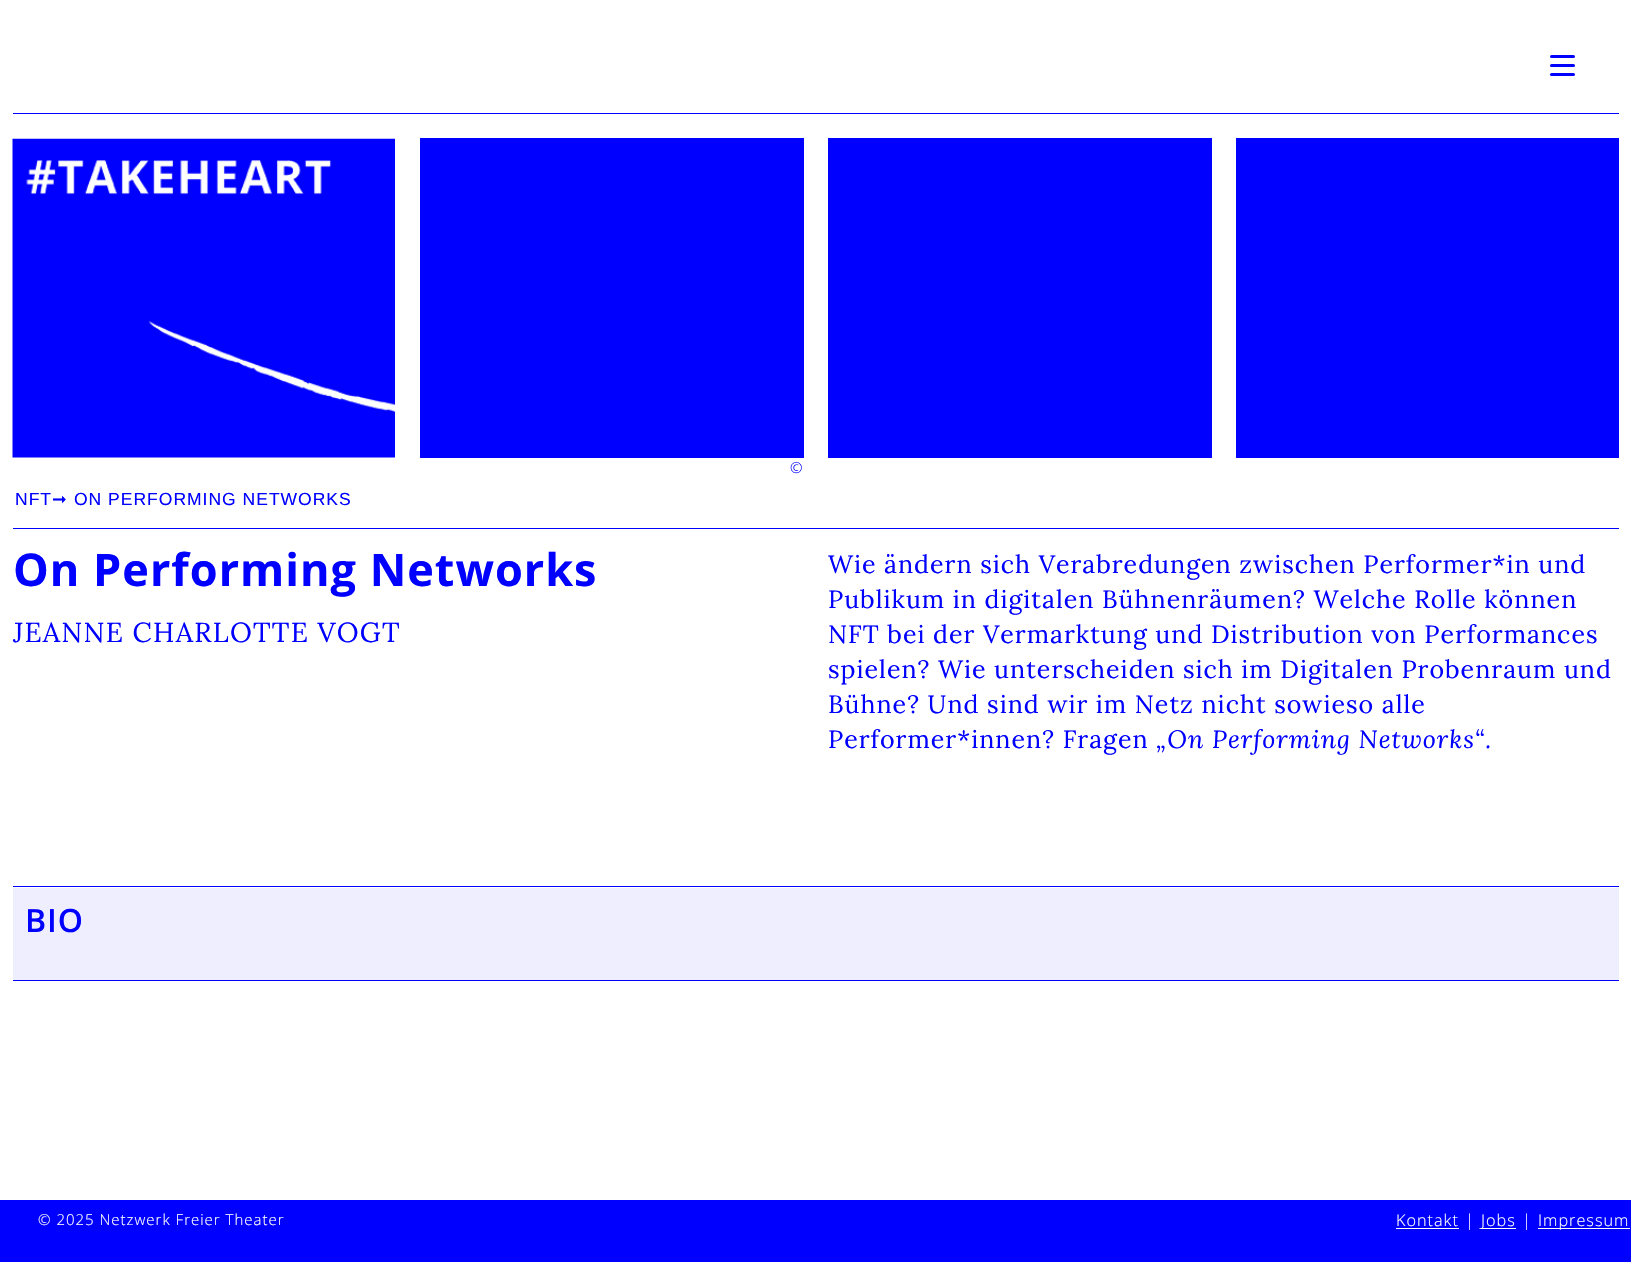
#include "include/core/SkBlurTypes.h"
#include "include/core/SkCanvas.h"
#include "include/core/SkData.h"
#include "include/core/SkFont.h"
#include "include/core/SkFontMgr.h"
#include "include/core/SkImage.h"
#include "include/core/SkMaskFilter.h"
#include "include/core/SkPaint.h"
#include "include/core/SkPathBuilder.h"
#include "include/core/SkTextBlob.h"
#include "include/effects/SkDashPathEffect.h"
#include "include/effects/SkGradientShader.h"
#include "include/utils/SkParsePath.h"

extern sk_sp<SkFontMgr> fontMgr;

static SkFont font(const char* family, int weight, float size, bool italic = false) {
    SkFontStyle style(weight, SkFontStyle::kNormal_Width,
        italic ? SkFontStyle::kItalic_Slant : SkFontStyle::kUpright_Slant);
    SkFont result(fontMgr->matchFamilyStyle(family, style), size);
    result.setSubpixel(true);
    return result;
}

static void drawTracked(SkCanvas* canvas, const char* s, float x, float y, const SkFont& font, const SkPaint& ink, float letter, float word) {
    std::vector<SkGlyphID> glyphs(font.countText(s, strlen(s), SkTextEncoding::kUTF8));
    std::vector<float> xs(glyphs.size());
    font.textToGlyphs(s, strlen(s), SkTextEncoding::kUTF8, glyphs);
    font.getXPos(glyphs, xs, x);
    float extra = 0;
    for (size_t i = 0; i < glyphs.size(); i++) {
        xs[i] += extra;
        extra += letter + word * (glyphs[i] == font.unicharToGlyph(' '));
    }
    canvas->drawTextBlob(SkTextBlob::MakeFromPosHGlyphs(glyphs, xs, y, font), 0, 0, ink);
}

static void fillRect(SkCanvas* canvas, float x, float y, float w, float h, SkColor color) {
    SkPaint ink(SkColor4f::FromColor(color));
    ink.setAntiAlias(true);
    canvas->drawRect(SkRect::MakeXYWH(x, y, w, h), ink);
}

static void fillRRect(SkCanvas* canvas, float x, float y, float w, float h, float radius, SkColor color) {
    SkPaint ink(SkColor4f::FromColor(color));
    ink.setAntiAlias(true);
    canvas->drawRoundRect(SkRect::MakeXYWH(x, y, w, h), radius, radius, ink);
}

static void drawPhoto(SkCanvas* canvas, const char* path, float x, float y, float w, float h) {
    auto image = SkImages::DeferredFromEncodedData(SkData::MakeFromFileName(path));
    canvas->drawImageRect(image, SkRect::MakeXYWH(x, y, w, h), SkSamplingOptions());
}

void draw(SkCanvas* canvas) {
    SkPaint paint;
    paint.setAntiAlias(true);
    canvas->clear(0xFFFFFFFF);
    fillRRect(canvas, 1550, 55, 25, 3, 1.5f, 0xFF0000FF);
    fillRRect(canvas, 1550, 64, 25, 3, 1.5f, 0xFF0000FF);
    fillRRect(canvas, 1550, 73, 25, 3, 1.5f, 0xFF0000FF);
    fillRect(canvas, 13, 113, 1606, 1, 0xFF0000FF);
    drawPhoto(canvas, "assets/img1.png", 12, 138, 383, 320);
    fillRect(canvas, 828, 138, 384, 320, 0xFF0000FF);
    fillRect(canvas, 1236, 138, 383, 320, 0xFF0000FF);
    fillRect(canvas, 420, 138, 384, 320, 0xFF0000FF);
    SkFont font1 = font("Open Sans", 300, 15);
    paint.setColor(0xFF0000FF);
    drawTracked(canvas, "©", 790, 473, font1, paint, 1, 0);
    SkFont font2 = font("Liberation Sans", 400, 17.5f);
    drawTracked(canvas, "NFT", 15, 505, font2, paint, 1, 0);
    SkFont font3 = font("DejaVu Sans", 400, 17.5f);
    drawTracked(canvas, "➞", 52, 505, font3, paint, 1, 0);
    drawTracked(canvas, "ON PERFORMING NETWORKS", 74, 505, font2, paint, 1, 0);
    fillRect(canvas, 13, 528, 1606, 1, 0xFF0000FF);
    SkFont font4 = font("Open Sans", 700, 45);
    drawTracked(canvas, "On Performing Networks", 13, 586, font4, paint, 1, 0);
    SkFont font5 = font("Lora", 400, 27.5f);
    drawTracked(canvas, "JEANNE CHARLOTTE VOGT", 13, 642, font5, paint, 1.25f, 0);
    SkFont font6 = font("Lora", 400, 25);
    drawTracked(canvas, "Wie ändern sich Verabredungen zwischen Performer*in und", 828, 573, font6, paint, 1, 0);
    drawTracked(canvas, "Publikum in digitalen Bühnenräumen? Welche Rolle können", 828, 608, font6, paint, 1, 0);
    drawTracked(canvas, "NFT bei der Vermarktung und Distribution von Performances", 828, 643, font6, paint, 1, 0);
    drawTracked(canvas, "spielen? Wie unterscheiden sich im Digitalen Probenraum und", 828, 678, font6, paint, 1, 0);
    drawTracked(canvas, "Bühne? Und sind wir im Netz nicht sowieso alle", 828, 713, font6, paint, 1, 0);
    drawTracked(canvas, "Performer*innen? Fragen", 828, 748, font6, paint, 1, 0);
    SkFont font7 = font("Lora", 400, 25, true);
    drawTracked(canvas, "„On Performing Networks“.", 1156, 748, font7, paint, 1, 0);
    fillRect(canvas, 13, 886, 1606, 1, 0xFF0000FF);
    fillRect(canvas, 13, 888, 1606, 92, 0xFFEEEEFF);
    SkFont font8 = font("Open Sans", 600, 32);
    drawTracked(canvas, "BIO", 25, 932, font8, paint, 1, 0);
    fillRect(canvas, 13, 980, 1606, 1, 0xFF0000FF);
    fillRect(canvas, 0, 1200, 1631, 62, 0xFF0000FF);
    paint.setColor(0xFFFFFFFF);
    drawTracked(canvas, "© 2025 Netzwerk Freier Theater", 38, 1225, font1, paint, 1, 0);
    SkFont font9 = font("Open Sans", 300, 16.25f);
    drawTracked(canvas, "Kontakt", 1396, 1226, font9, paint, 1, 0);
    fillRect(canvas, 1396, 1228, 63, 1, 0xFFFFFFFF);
    drawTracked(canvas, "|", 1465, 1226, font9, paint, 1, 0);
    fillRect(canvas, 1481, 1228, 35, 1, 0xFFFFFFFF);
    drawTracked(canvas, "Jobs", 1481, 1226, font9, paint, 1, 0);
    drawTracked(canvas, "|", 1522, 1226, font9, paint, 1, 0);
    fillRect(canvas, 1538, 1228, 92, 1, 0xFFFFFFFF);
    drawTracked(canvas, "Impressum", 1538, 1226, font9, paint, 1, 0);
}
